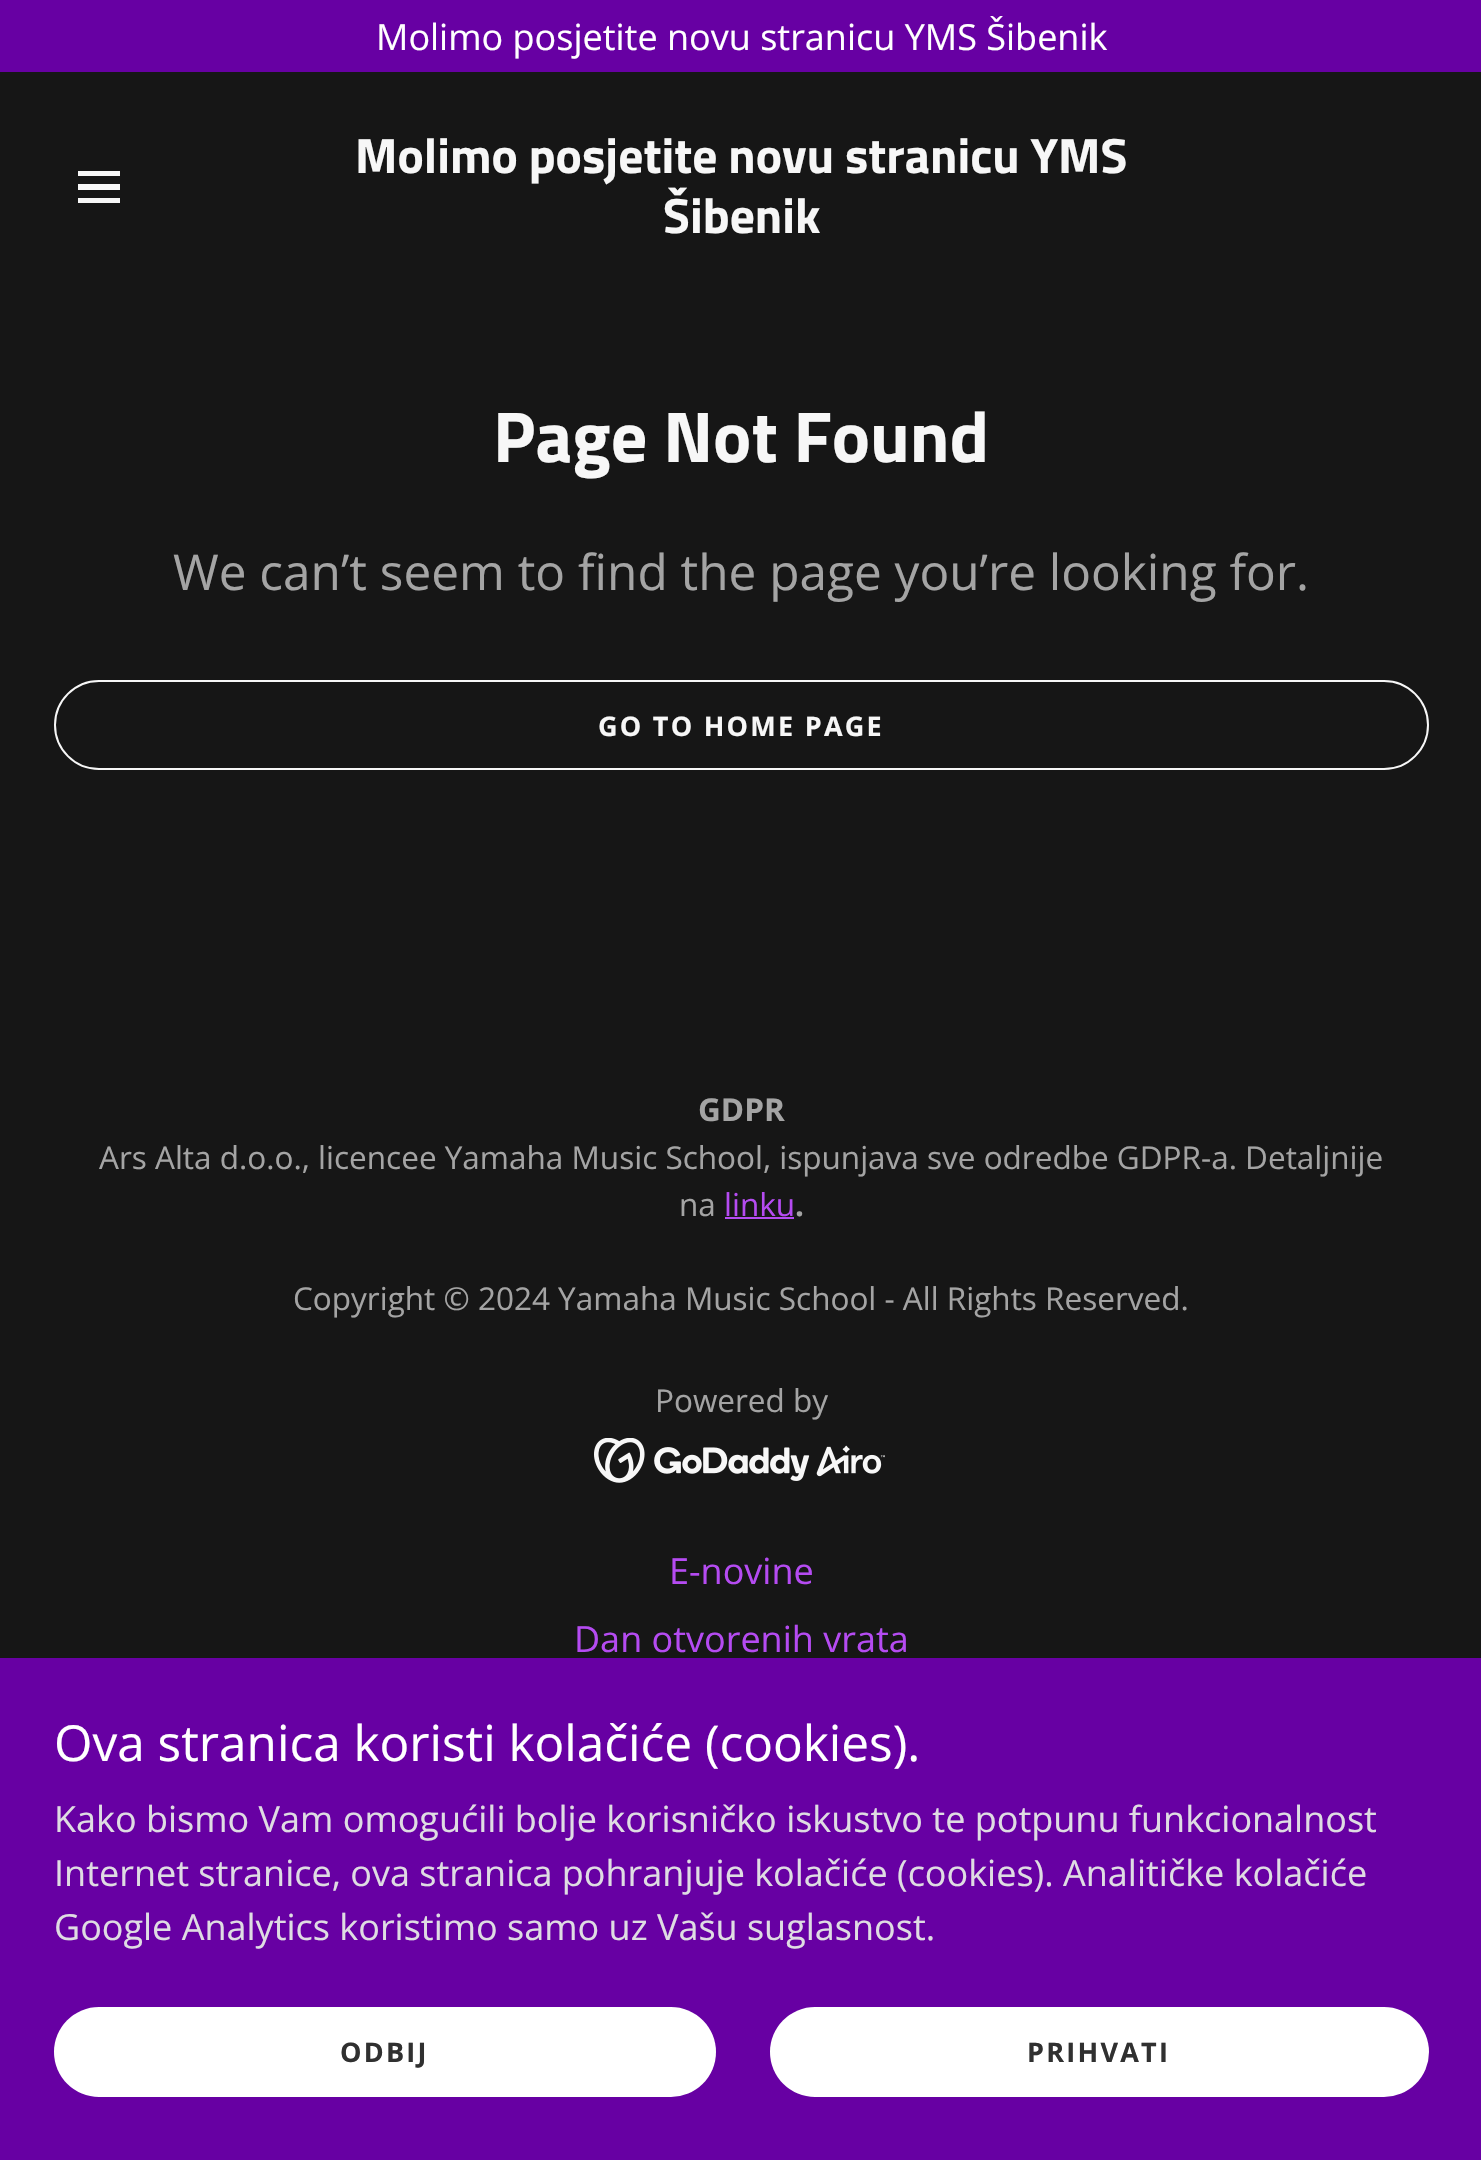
#include "include/core/SkBlurTypes.h"
#include "include/core/SkCanvas.h"
#include "include/core/SkData.h"
#include "include/core/SkFont.h"
#include "include/core/SkFontMgr.h"
#include "include/core/SkImage.h"
#include "include/core/SkMaskFilter.h"
#include "include/core/SkPaint.h"
#include "include/core/SkPathBuilder.h"
#include "include/core/SkTextBlob.h"
#include "include/effects/SkDashPathEffect.h"
#include "include/effects/SkGradientShader.h"
#include "include/utils/SkParsePath.h"

extern sk_sp<SkFontMgr> fontMgr;

static SkFont font(const char* family, int weight, float size, bool italic = false) {
    SkFontStyle style(weight, SkFontStyle::kNormal_Width,
        italic ? SkFontStyle::kItalic_Slant : SkFontStyle::kUpright_Slant);
    SkFont result(fontMgr->matchFamilyStyle(family, style), size);
    result.setSubpixel(true);
    return result;
}

static void drawLabel(SkCanvas* canvas, const char* s, float x, float y, const SkFont& font, SkColor color) {
    SkPaint ink(SkColor4f::FromColor(color));
    ink.setAntiAlias(true);
    canvas->drawString(s, x, y, font, ink);
}

static void drawTracked(SkCanvas* canvas, const char* s, float x, float y, const SkFont& font, const SkPaint& ink, float letter, float word) {
    std::vector<SkGlyphID> glyphs(font.countText(s, strlen(s), SkTextEncoding::kUTF8));
    std::vector<float> xs(glyphs.size());
    font.textToGlyphs(s, strlen(s), SkTextEncoding::kUTF8, glyphs);
    font.getXPos(glyphs, xs, x);
    float extra = 0;
    for (size_t i = 0; i < glyphs.size(); i++) {
        xs[i] += extra;
        extra += letter + word * (glyphs[i] == font.unicharToGlyph(' '));
    }
    canvas->drawTextBlob(SkTextBlob::MakeFromPosHGlyphs(glyphs, xs, y, font), 0, 0, ink);
}

static void fillRect(SkCanvas* canvas, float x, float y, float w, float h, SkColor color) {
    SkPaint ink(SkColor4f::FromColor(color));
    ink.setAntiAlias(true);
    canvas->drawRect(SkRect::MakeXYWH(x, y, w, h), ink);
}

static void fillRRect(SkCanvas* canvas, float x, float y, float w, float h, float radius, SkColor color) {
    SkPaint ink(SkColor4f::FromColor(color));
    ink.setAntiAlias(true);
    canvas->drawRoundRect(SkRect::MakeXYWH(x, y, w, h), radius, radius, ink);
}

static void drawPhoto(SkCanvas* canvas, const char* path, float x, float y, float w, float h) {
    auto image = SkImages::DeferredFromEncodedData(SkData::MakeFromFileName(path));
    canvas->drawImageRect(image, SkRect::MakeXYWH(x, y, w, h), SkSamplingOptions());
}

void draw(SkCanvas* canvas) {
    SkPaint paint;
    paint.setAntiAlias(true);
    canvas->clear(0xFF161616);
    fillRect(canvas, 0, 0, 1481, 72, 0xFF6700A3);
    SkFont font1 = font("Open Sans", 400, 36);
    drawLabel(canvas, "Molimo posjetite novu stranicu YMS Šibenik", 376, 50, font1, 0xFFFFFFFF);
    fillRect(canvas, 78, 171, 42, 5, 0xFFF7F7F7);
    fillRect(canvas, 78, 184, 42, 6, 0xFFF7F7F7);
    fillRect(canvas, 78, 198, 42, 5, 0xFFF7F7F7);
    SkFont font2 = font("Titillium Web", 700, 49.5f);
    drawLabel(canvas, "Molimo posjetite novu stranicu YMS", 355, 173, font2, 0xFFF7F7F7);
    drawLabel(canvas, "Šibenik", 663, 233, font2, 0xFFF7F7F7);
    SkFont font3 = font("Titillium Web", 700, 72);
    drawLabel(canvas, "Page Not Found", 493, 462, font3, 0xFFF7F7F7);
    SkFont font4 = font("Open Sans", 400, 49.5f);
    drawLabel(canvas, "We can’t seem to find the page you’re looking for.", 173, 590, font4, 0xFFA4A4A4);
    paint.setStroke(true);
    paint.setStrokeWidth(2);
    paint.setColor(0xFFF7F7F7);
    canvas->drawRoundRect(SkRect::MakeXYWH(55, 681, 1373, 88), 44, 44, paint);
    SkFont font5 = font("Open Sans", 700, 27);
    paint.setStroke(false);
    drawTracked(canvas, "GO TO HOME PAGE", 598, 736, font5, paint, 2.25f, 0);
    SkFont font6 = font("Open Sans", 700, 31.5f);
    drawLabel(canvas, "GDPR", 698, 1121, font6, 0xFFA4A4A4);
    SkFont font7 = font("Open Sans", 400, 31.5f);
    drawLabel(canvas, "Ars Alta d.o.o., licencee Yamaha Music School, ispunjava sve odredbe GDPR-a. Detaljnije", 99, 1169, font7, 0xFFA4A4A4);
    drawLabel(canvas, "na", 679, 1216, font7, 0xFFA4A4A4);
    drawLabel(canvas, "linku", 724, 1216, font7, 0xFFB54BF2);
    drawLabel(canvas, ".", 795, 1216, font6, 0xFFA4A4A4);
    fillRect(canvas, 725, 1217, 69, 2, 0xFFB54BF2);
    drawLabel(canvas, "Copyright © 2024 Yamaha Music School - All Rights Reserved.", 293, 1310, font7, 0xFFA4A4A4);
    drawLabel(canvas, "Powered by", 655, 1412, font7, 0xFFA4A4A4);
    drawPhoto(canvas, "assets/img1.png", 594, 1438, 291, 45);
    drawLabel(canvas, "E-novine", 669, 1584, font1, 0xFFB54BF2);
    drawLabel(canvas, "Dan otvorenih vrata", 574, 1652, font1, 0xFFB54BF2);
    fillRect(canvas, 0, 1658, 1481, 502, 0xFF6700A3);
    drawLabel(canvas, "Ova stranica koristi kolačiće (cookies).", 54, 1761, font4, 0xFFFFFFFF);
    drawLabel(canvas, "Kako bismo Vam omogućili bolje korisničko iskustvo te potpunu funkcionalnost", 54, 1832, font1, 0xFFDFDCE3);
    drawLabel(canvas, "Internet stranice, ova stranica pohranjuje kolačiće (cookies). Analitičke kolačiće", 54, 1886, font1, 0xFFDFDCE3);
    drawLabel(canvas, "Google Analytics koristimo samo uz Vašu suglasnost.", 54, 1940, font1, 0xFFDFDCE3);
    fillRRect(canvas, 54, 2007, 662, 90, 45, 0xFFFFFFFF);
    paint.setColor(0xFF303030);
    drawTracked(canvas, "ODBIJ", 340, 2062, font5, paint, 2.25f, 0);
    fillRRect(canvas, 770, 2007, 659, 90, 45, 0xFFFFFFFF);
    drawTracked(canvas, "PRIHVATI", 1027, 2062, font5, paint, 2.25f, 0);
}
